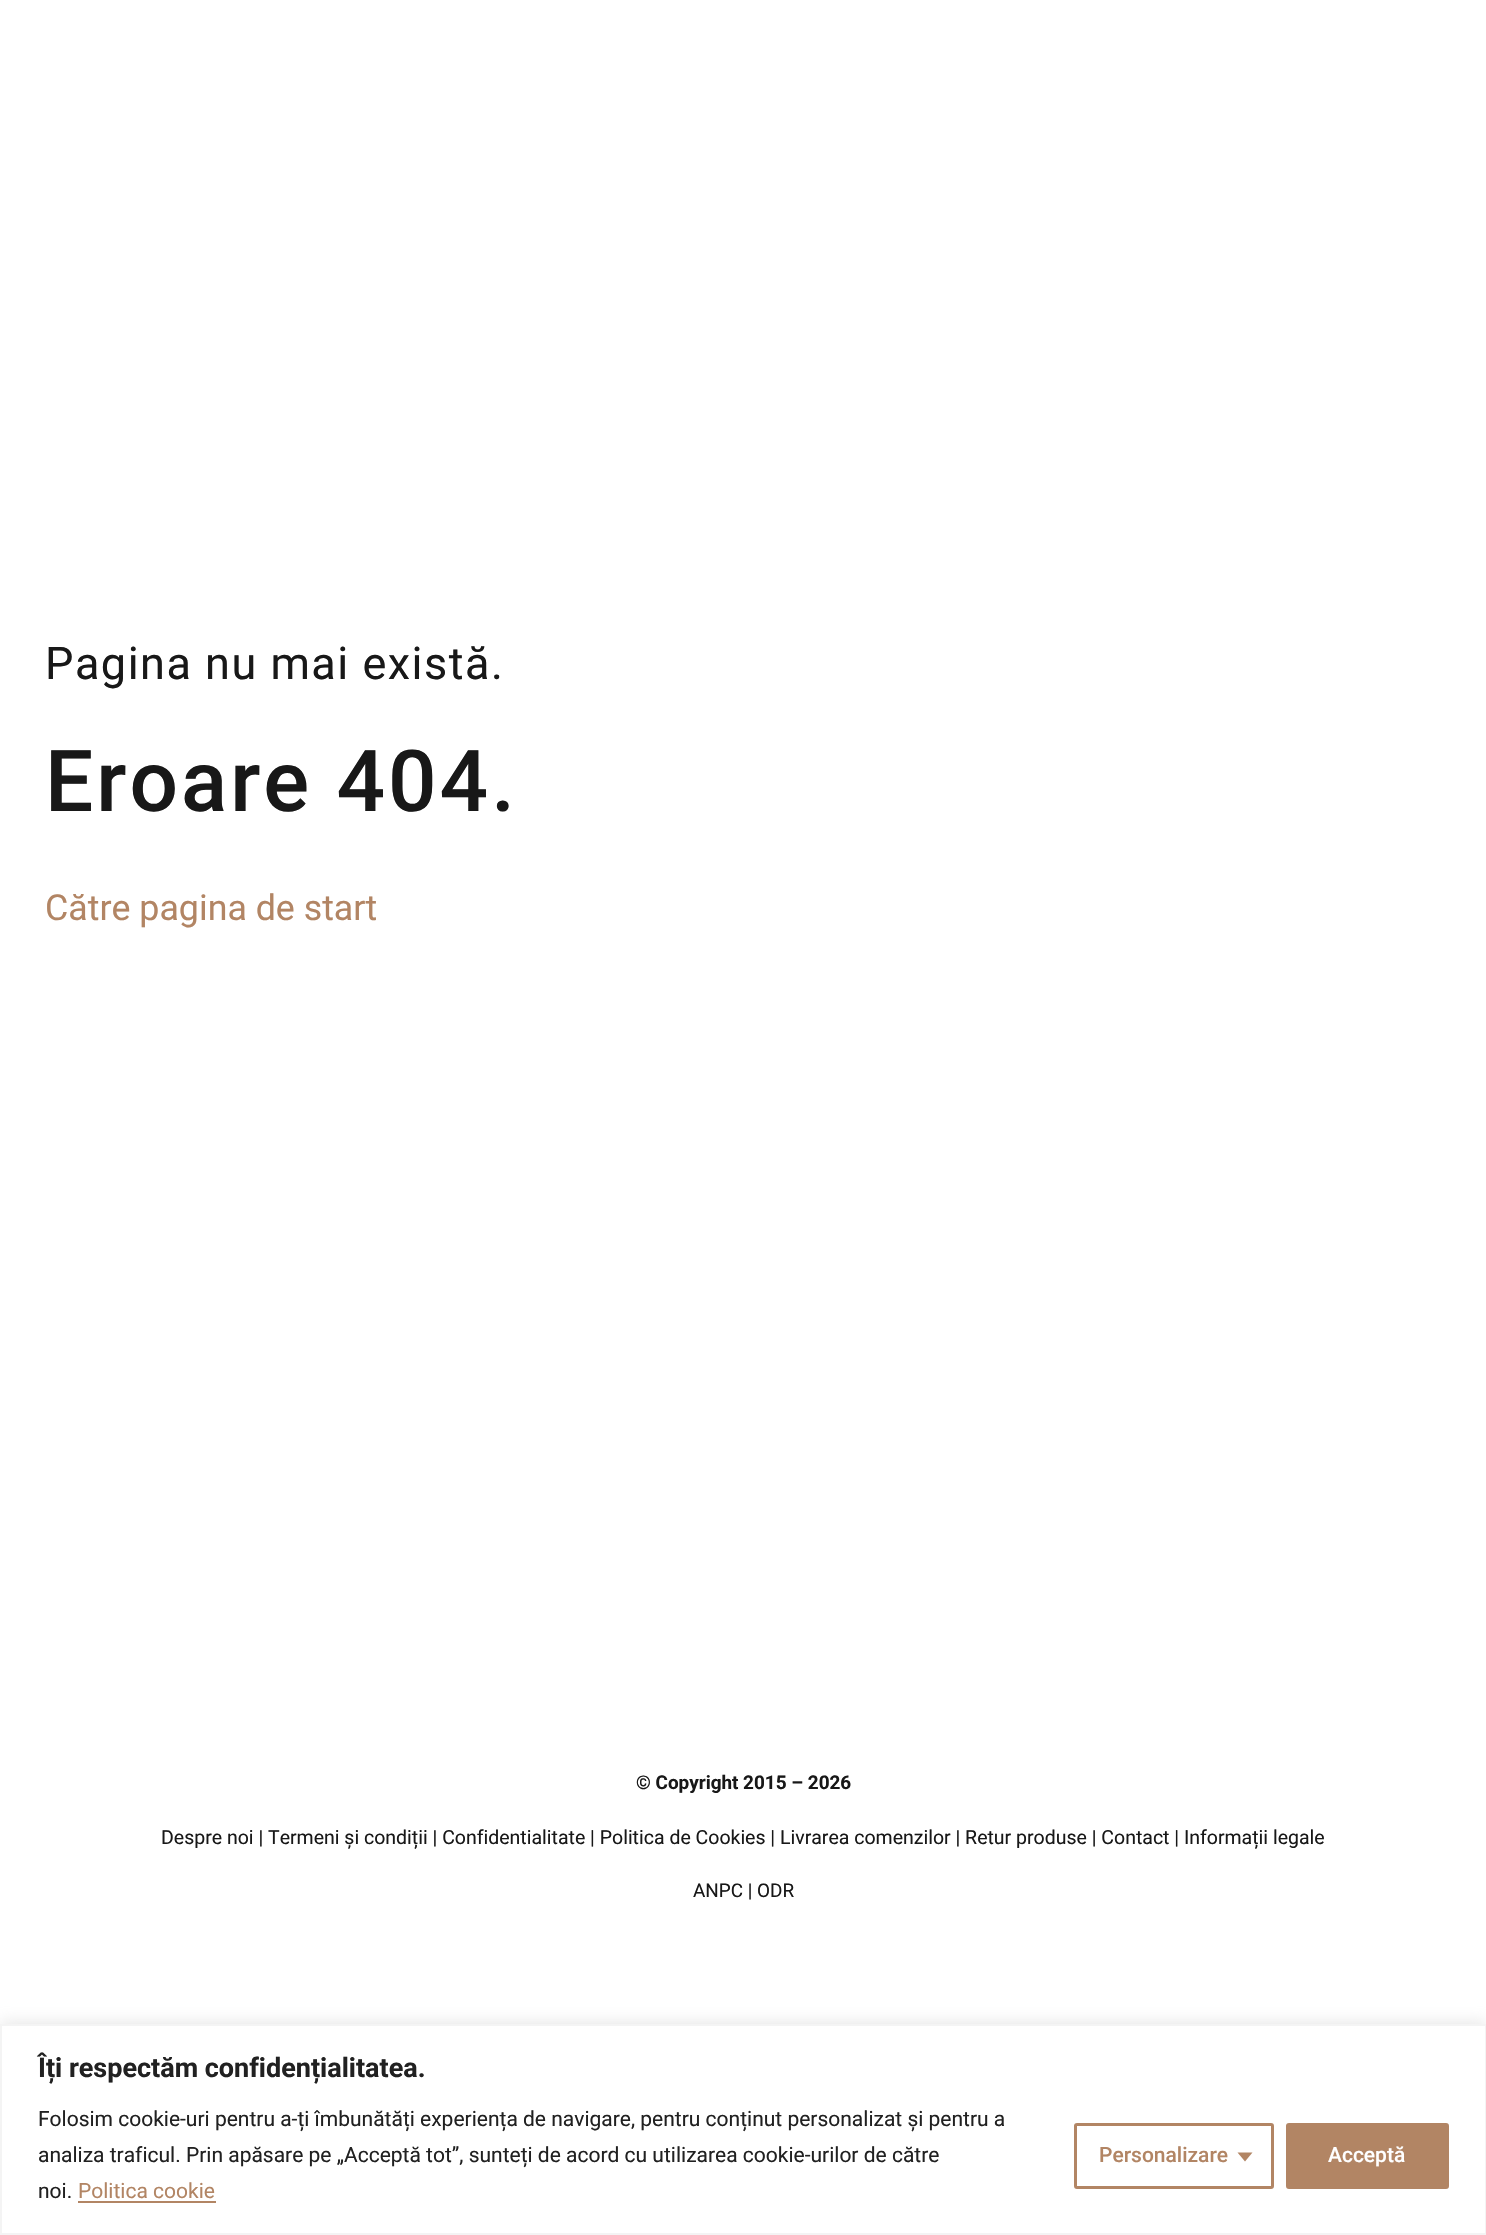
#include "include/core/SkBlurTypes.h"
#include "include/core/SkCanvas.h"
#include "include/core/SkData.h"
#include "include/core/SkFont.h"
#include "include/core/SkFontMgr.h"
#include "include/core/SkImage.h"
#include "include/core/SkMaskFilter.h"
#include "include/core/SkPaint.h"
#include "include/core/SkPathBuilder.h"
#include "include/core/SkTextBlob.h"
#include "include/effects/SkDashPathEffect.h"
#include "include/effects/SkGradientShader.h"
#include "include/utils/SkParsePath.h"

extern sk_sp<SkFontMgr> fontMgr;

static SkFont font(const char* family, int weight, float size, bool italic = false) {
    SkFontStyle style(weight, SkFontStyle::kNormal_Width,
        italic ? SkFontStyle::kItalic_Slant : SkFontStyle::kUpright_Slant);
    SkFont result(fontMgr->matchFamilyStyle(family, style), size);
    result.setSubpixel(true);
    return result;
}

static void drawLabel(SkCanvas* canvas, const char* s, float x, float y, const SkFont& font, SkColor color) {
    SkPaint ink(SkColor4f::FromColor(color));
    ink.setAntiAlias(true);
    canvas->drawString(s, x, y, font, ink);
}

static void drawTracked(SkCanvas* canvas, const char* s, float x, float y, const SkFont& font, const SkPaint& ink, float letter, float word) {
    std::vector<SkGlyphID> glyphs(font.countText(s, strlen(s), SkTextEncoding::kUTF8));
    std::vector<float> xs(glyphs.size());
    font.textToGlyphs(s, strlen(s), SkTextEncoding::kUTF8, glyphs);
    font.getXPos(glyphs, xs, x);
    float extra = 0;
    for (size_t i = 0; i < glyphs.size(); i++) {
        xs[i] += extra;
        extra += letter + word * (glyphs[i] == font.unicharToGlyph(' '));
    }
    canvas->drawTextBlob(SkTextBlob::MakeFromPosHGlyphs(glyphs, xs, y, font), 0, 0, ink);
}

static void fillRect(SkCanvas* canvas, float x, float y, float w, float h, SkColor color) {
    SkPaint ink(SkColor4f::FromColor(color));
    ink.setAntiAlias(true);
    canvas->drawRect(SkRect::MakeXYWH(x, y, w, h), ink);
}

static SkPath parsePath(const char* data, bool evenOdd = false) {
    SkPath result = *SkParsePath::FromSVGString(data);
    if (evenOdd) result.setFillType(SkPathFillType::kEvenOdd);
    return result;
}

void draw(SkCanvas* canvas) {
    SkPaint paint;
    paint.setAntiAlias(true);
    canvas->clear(0xFFFFFFFF);
    SkFont font1 = font("Roboto", 400, 45);
    paint.setColor(0xFF181818);
    drawTracked(canvas, "Pagina nu mai există.", 45, 679, font1, paint, 1.5f, 0);
    SkFont font2 = font("Roboto", 500, 85.5f);
    drawTracked(canvas, "Eroare 404.", 45, 811, font2, paint, 3, 0);
    SkFont font3 = font("Roboto", 400, 35.75f);
    drawLabel(canvas, "Către pagina de start", 45, 920, font3, 0xFFB28564);
    SkFont font4 = font("Roboto", 700, 18.9f);
    drawLabel(canvas, "© Copyright 2015 – 2026", 636, 1789, font4, 0xFF181818);
    SkFont font5 = font("Roboto", 400, 19.5f);
    drawLabel(canvas, "Despre noi | Termeni și condiții | Confidentialitate | Politica de Cookies | Livrarea comenzilor | Retur produse | Contact | Informații legale", 161, 1844, font5, 0xFF181818);
    SkFont font6 = font("Roboto", 400, 18.9f);
    drawLabel(canvas, "ANPC | ODR", 693, 1897, font6, 0xFF181818);
    paint.setColor(0x4DACABAB);
    paint.setMaskFilter(SkMaskFilter::MakeBlur(kNormal_SkBlurStyle, 7.5f));
    canvas->drawRect(SkRect::MakeXYWH(0, 2022, 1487, 212), paint);
    paint.setMaskFilter(nullptr);
    paint.setColor(0xFFFFFFFF);
    canvas->drawRect(SkRect::MakeXYWH(1, 2025, 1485, 209), paint);
    paint.setStroke(true);
    paint.setStrokeWidth(2);
    paint.setColor(0xFFF4F4F4);
    canvas->drawRect(SkRect::MakeXYWH(1, 2025, 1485, 209), paint);
    SkFont font7 = font("Roboto", 700, 27);
    drawLabel(canvas, "Îți respectăm confidențialitatea.", 38, 2077, font7, 0xFF212121);
    SkFont font8 = font("Roboto", 400, 21);
    drawLabel(canvas, "Folosim cookie-uri pentru a-ți îmbunătăți experiența de navigare, pentru conținut personalizat și pentru a", 38, 2126, font8, 0xFF212121);
    drawLabel(canvas, "analiza traficul. Prin apăsare pe „Acceptă tot”, sunteți de acord cu utilizarea cookie-urilor de către", 38, 2162, font8, 0xFF212121);
    drawLabel(canvas, "noi.", 38, 2198, font8, 0xFF212121);
    drawLabel(canvas, "Politica cookie", 78, 2198, font8, 0xFFB28564);
    fillRect(canvas, 78, 2201, 138, 2, 0xFFB28564);
    paint.setStrokeWidth(3);
    paint.setColor(0xFFB28564);
    canvas->drawRoundRect(SkRect::MakeXYWH(1075.5f, 2124.5f, 197, 63), 1.5f, 1.5f, paint);
    SkFont font9 = font("Roboto", 500, 21);
    drawLabel(canvas, "Personalizare", 1099, 2162, font9, 0xFFB28564);
    paint.setStroke(false);
    canvas->drawPath(parsePath("M1237.5 2152.5H1252.5L1245 2161.5Z"), paint);
    canvas->drawRoundRect(SkRect::MakeXYWH(1287.5f, 2124.5f, 160, 63), 1.5f, 1.5f, paint);
    paint.setStroke(true);
    canvas->drawRoundRect(SkRect::MakeXYWH(1287.5f, 2124.5f, 160, 63), 1.5f, 1.5f, paint);
    drawLabel(canvas, "Acceptă", 1328, 2162, font9, 0xFFFFFFFF);
}
